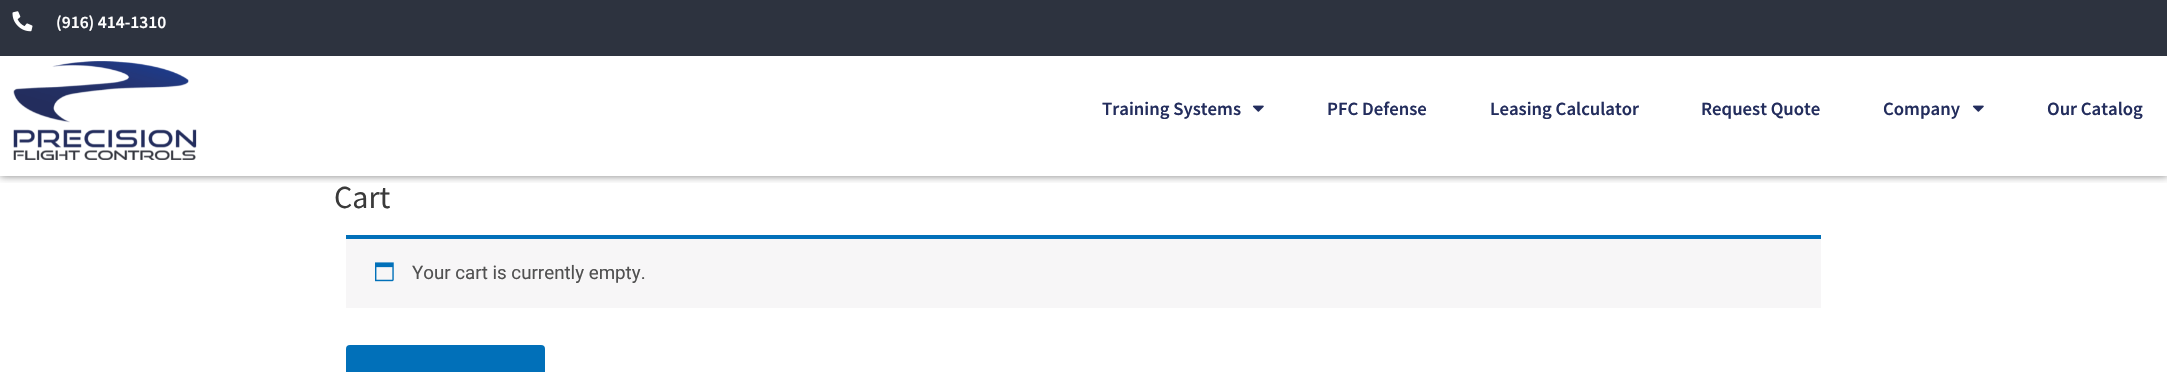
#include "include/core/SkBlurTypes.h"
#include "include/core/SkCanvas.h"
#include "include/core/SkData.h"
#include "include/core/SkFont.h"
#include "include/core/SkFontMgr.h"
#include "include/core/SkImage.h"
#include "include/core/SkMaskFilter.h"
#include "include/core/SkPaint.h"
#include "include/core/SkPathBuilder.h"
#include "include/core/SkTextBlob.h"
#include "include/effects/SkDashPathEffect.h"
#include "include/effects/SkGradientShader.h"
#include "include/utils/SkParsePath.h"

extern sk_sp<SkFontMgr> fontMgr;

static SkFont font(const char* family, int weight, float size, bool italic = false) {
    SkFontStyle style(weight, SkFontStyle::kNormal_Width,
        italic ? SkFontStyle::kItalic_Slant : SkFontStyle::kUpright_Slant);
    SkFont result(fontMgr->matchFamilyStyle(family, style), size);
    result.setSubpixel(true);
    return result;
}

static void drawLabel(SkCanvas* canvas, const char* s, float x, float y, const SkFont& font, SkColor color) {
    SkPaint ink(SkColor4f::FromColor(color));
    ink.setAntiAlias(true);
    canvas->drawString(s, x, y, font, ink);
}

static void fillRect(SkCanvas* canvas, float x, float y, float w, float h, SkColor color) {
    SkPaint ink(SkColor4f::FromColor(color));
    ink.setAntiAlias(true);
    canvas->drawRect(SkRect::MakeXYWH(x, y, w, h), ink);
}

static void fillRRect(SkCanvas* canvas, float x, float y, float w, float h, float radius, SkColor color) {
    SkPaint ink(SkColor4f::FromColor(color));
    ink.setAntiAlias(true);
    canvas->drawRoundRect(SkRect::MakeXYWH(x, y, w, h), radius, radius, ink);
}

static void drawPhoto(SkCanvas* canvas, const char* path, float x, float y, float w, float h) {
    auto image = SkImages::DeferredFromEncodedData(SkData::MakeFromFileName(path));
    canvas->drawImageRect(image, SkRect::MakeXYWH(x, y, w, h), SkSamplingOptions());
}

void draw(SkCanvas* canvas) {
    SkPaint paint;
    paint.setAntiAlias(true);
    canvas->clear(0xFFFFFFFF);
    canvas->save();
    canvas->clipRect(SkRect::MakeXYWH(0, 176, 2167, 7));
    paint.setColor(0x80000000);
    paint.setMaskFilter(SkMaskFilter::MakeBlur(kNormal_SkBlurStyle, 4));
    canvas->drawRect(SkRect::MakeXYWH(0, 0, 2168, 176), paint);
    paint.setMaskFilter(nullptr);
    canvas->restore();
    fillRect(canvas, 0, 0, 2167, 56, 0xFF2D333F);
    drawPhoto(canvas, "assets/img1.png", 12, 11, 21, 21);
    SkFont font1 = font("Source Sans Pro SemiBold", 600, 17.5f);
    drawLabel(canvas, "(916) 414-1310", 56, 28, font1, 0xFFFFFFFF);
    drawPhoto(canvas, "assets/img2.png", 13, 61, 184, 99);
    SkFont font2 = font("Source Sans Pro SemiBold", 600, 18.75f);
    drawLabel(canvas, "Training Systems", 1102, 115, font2, 0xFF232D5D);
    drawPhoto(canvas, "assets/img3.png", 1252, 105, 12, 7);
    drawLabel(canvas, "PFC Defense", 1327, 115, font2, 0xFF232D5D);
    drawLabel(canvas, "Leasing Calculator", 1490, 115, font2, 0xFF232D5D);
    drawLabel(canvas, "Request Quote", 1701, 115, font2, 0xFF232D5D);
    drawLabel(canvas, "Company", 1883, 115, font2, 0xFF232D5D);
    drawPhoto(canvas, "assets/img3.png", 1972, 105, 12, 7);
    drawLabel(canvas, "Our Catalog", 2047, 115, font2, 0xFF232D5D);
    SkFont font3 = font("Source Sans Pro", 400, 32);
    drawLabel(canvas, "Cart", 334, 208, font3, 0xFF3A3A3A);
    fillRect(canvas, 346, 239, 1475, 69, 0xFFF7F6F7);
    fillRect(canvas, 346, 235, 1475, 4, 0xFF0170B9);
    drawPhoto(canvas, "assets/img4.png", 375, 262, 19, 20);
    SkFont font4 = font("Roboto", 400, 18.75f);
    drawLabel(canvas, "Your cart is currently empty.", 412, 279, font4, 0xFF515151);
    fillRRect(canvas, 346, 345, 199, 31, 4, 0xFF0170B9);
}
